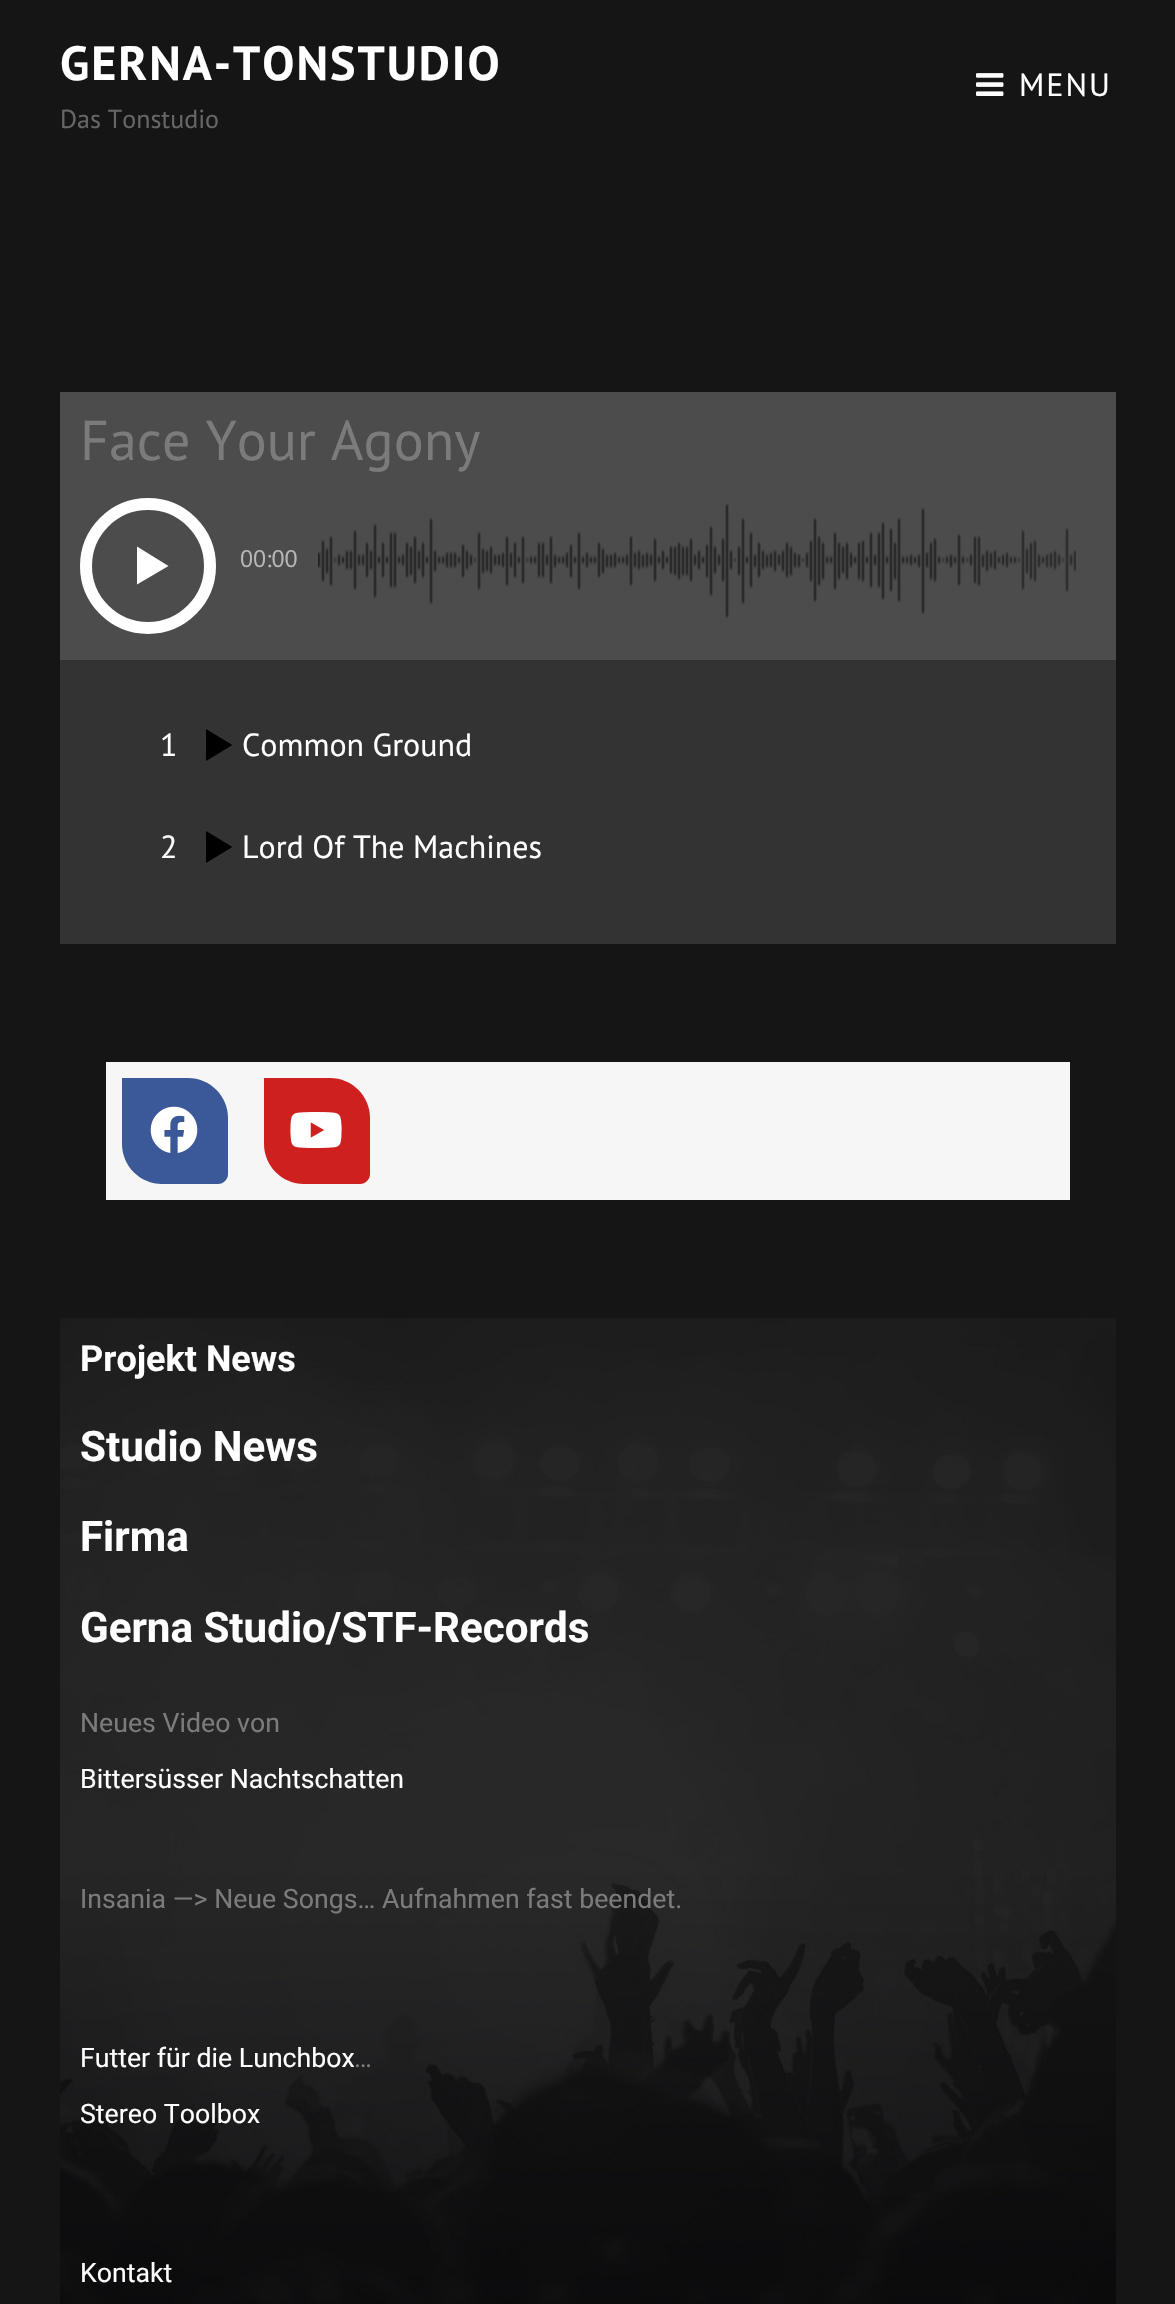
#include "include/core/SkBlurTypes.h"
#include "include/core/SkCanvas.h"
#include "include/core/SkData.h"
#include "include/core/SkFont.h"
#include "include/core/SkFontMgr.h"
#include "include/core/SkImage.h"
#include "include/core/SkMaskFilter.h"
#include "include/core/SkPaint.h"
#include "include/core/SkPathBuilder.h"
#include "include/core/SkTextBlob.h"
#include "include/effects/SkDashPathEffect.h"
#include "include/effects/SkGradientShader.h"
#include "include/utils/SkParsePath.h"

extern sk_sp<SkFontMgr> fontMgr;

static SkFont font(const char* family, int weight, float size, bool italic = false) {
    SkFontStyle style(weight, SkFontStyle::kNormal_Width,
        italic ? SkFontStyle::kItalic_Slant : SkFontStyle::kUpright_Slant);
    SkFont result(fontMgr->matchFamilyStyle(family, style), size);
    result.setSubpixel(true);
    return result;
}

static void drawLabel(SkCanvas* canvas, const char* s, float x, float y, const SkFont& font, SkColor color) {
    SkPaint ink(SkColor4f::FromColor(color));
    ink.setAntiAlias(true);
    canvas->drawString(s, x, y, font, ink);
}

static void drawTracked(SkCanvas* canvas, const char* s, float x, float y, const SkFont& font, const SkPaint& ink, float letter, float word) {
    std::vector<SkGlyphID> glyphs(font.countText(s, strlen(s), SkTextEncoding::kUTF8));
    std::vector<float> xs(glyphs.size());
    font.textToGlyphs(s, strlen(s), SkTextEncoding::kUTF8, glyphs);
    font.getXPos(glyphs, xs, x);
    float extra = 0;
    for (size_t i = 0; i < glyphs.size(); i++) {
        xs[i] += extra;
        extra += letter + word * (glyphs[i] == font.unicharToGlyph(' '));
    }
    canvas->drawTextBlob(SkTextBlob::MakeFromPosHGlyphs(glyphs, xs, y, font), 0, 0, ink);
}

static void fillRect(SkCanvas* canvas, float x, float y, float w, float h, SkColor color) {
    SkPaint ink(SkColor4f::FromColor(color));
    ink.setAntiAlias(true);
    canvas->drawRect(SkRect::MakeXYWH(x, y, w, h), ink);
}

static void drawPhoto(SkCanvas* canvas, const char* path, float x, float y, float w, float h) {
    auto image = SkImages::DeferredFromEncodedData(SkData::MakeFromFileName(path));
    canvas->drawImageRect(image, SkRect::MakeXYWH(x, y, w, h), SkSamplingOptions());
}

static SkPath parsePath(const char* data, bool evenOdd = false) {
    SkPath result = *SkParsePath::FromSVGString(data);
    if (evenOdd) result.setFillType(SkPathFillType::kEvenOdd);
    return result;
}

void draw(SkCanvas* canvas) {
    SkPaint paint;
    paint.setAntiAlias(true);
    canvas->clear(0xFF151515);
    SkFont font1 = font("PT Sans", 700, 48);
    paint.setColor(0xFFFFFFFF);
    drawTracked(canvas, "GERNA-TONSTUDIO", 60, 80, font1, paint, 2, 0);
    SkFont font2 = font("PT Sans", 400, 26);
    drawLabel(canvas, "Das Tonstudio", 60, 128, font2, 0xFF666666);
    drawPhoto(canvas, "assets/img1.png", 976, 73, 28, 23);
    SkFont font3 = font("PT Sans", 400, 32);
    drawTracked(canvas, "MENU", 1019, 96, font3, paint, 2, 0);
    fillRect(canvas, 60, 392, 1056, 268, 0xFF4C4C4C);
    SkFont font4 = font("PT Sans", 400, 56);
    drawLabel(canvas, "Face Your Agony", 80, 460, font4, 0xFF7B7B7B);
    paint.setStroke(true);
    paint.setStrokeWidth(12);
    canvas->drawCircle(148, 566, 62, paint);
    paint.setStroke(false);
    canvas->drawPath(parsePath("M137 546.5L168.5 566L137 584.5Z"), paint);
    SkFont font5 = font("PT Sans", 400, 24);
    drawLabel(canvas, "00:00", 240, 567, font5, 0xFFB7B7B7);
    drawPhoto(canvas, "assets/img2.png", 318, 503, 758, 116);
    fillRect(canvas, 60, 660, 1056, 284, 0xFF333333);
    drawLabel(canvas, "1", 160, 756, font3, 0xFFFFFFFF);
    paint.setColor(0xFF000000);
    canvas->drawPath(parsePath("M206 729L232.5 745L206 761Z"), paint);
    drawLabel(canvas, "Common Ground", 242, 756, font3, 0xFFFFFFFF);
    drawLabel(canvas, "2", 160, 858, font3, 0xFFFFFFFF);
    canvas->drawPath(parsePath("M206 831L232.5 847L206 863Z"), paint);
    drawLabel(canvas, "Lord Of The Machines", 242, 858, font3, 0xFFFFFFFF);
    fillRect(canvas, 106, 1062, 964, 138, 0xFFF6F6F6);
    paint.setColor(0xFF3B5998);
    canvas->drawPath(parsePath("M122 1078H188C210 1078 228 1096 228 1118V1174C228 1179.5 223.5 1184 218 1184H162C140 1184 122 1166 122 1144Z"), paint);
    drawPhoto(canvas, "assets/img3.png", 150, 1106, 48, 47);
    paint.setColor(0xFFCD201F);
    canvas->drawPath(parsePath("M264 1078H330C352 1078 370 1096 370 1118V1174C370 1179.5 365.5 1184 360 1184H304C282 1184 264 1166 264 1144Z"), paint);
    drawPhoto(canvas, "assets/img4.png", 290, 1112, 52, 36);
    drawPhoto(canvas, "assets/img5.png", 60, 1318, 1056, 986);
    SkFont font6 = font("Roboto", 700, 36);
    drawLabel(canvas, "Projekt News", 80, 1371, font6, 0xFFFFFFFF);
    SkFont font7 = font("Roboto", 700, 42.1f);
    drawLabel(canvas, "Studio News", 80, 1461, font7, 0xFFFFFFFF);
    drawLabel(canvas, "Firma", 80, 1551, font7, 0xFFFFFFFF);
    drawLabel(canvas, "Gerna Studio/STF-Records", 80, 1642, font7, 0xFFFFFFFF);
    SkFont font8 = font("Roboto", 400, 26.7f);
    drawLabel(canvas, "Neues Video von", 80, 1732, font8, 0xFF7B7B7B);
    drawLabel(canvas, "Bittersüsser Nachtschatten", 80, 1788, font8, 0xFFFFFFFF);
    drawLabel(canvas, "Insania —> Neue Songs… Aufnahmen fast beendet.", 80, 1908, font8, 0xFF7B7B7B);
    drawLabel(canvas, "Futter für die Lunchbox", 80, 2067, font8, 0xFFFFFFFF);
    drawLabel(canvas, "…", 354, 2067, font8, 0xFF7B7B7B);
    drawLabel(canvas, "Stereo Toolbox", 80, 2123, font8, 0xFFFFFFFF);
    drawLabel(canvas, "Kontakt", 80, 2282, font8, 0xFFFFFFFF);
}
